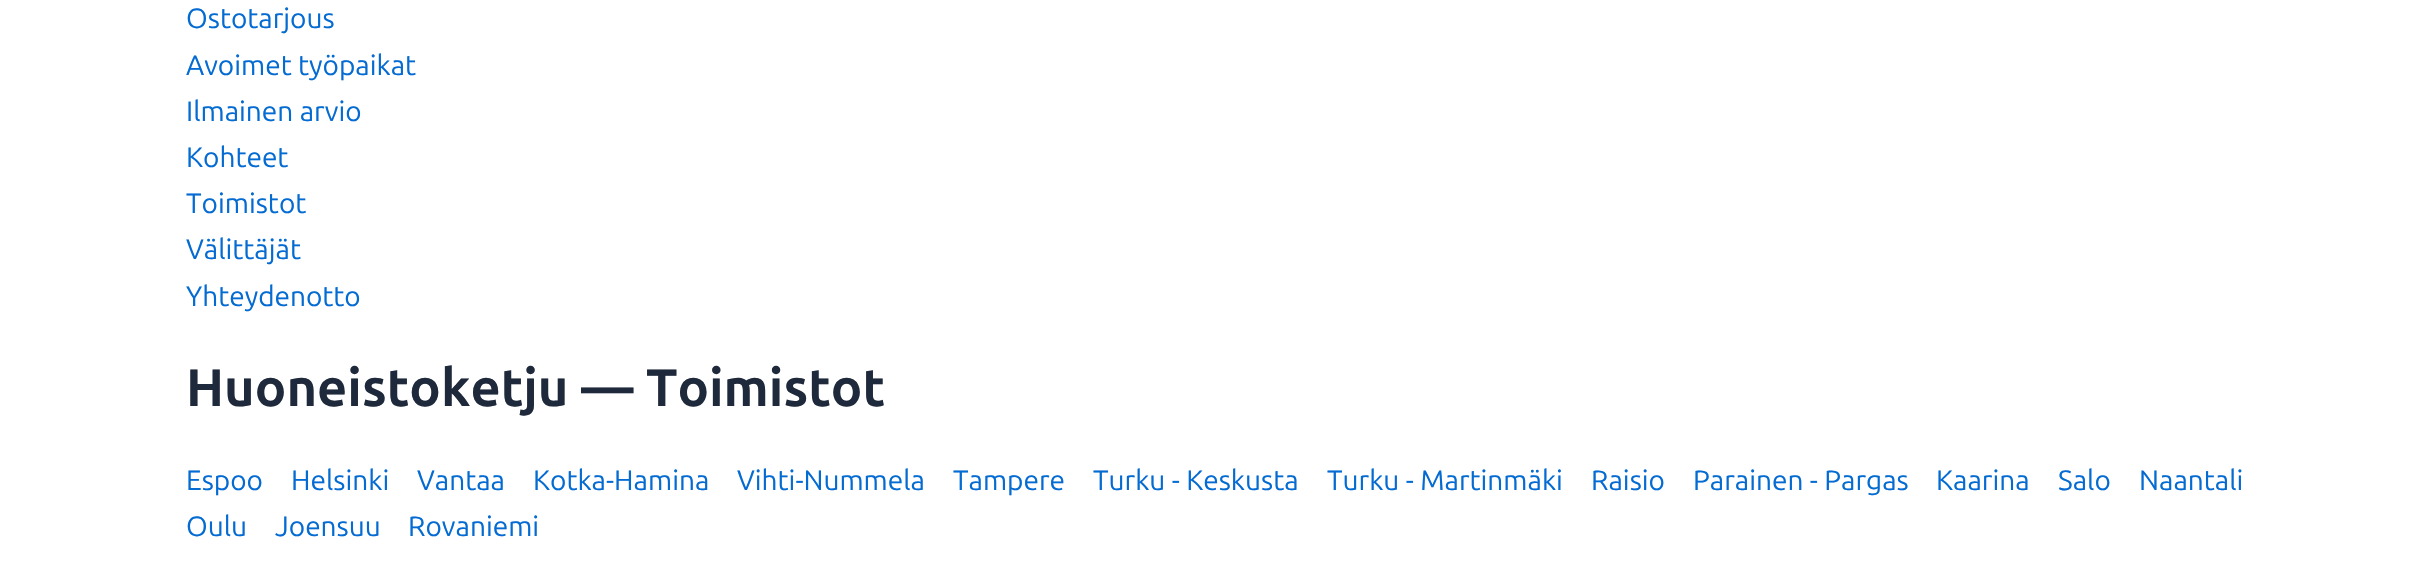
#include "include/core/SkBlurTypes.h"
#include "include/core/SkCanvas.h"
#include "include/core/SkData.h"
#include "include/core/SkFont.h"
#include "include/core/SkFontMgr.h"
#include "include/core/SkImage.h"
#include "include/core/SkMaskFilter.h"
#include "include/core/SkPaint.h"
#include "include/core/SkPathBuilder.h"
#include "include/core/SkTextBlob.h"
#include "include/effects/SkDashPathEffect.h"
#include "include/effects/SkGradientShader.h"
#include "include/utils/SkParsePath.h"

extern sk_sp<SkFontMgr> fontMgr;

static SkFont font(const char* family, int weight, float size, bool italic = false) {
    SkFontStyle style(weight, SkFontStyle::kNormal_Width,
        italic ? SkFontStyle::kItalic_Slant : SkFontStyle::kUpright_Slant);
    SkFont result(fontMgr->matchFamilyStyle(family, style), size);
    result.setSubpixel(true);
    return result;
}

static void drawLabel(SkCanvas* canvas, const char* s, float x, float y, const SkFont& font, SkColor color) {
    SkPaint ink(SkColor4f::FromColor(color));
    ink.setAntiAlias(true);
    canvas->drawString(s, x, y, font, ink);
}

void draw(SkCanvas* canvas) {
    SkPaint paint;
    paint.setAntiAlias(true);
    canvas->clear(0xFFFFFFFF);
    SkFont font1 = font("Ubuntu", 400, 28);
    drawLabel(canvas, "Ostotarjous", 186, 28, font1, 0xFF046BD2);
    drawLabel(canvas, "Avoimet työpaikat", 186, 75, font1, 0xFF046BD2);
    drawLabel(canvas, "Ilmainen arvio", 186, 121, font1, 0xFF046BD2);
    drawLabel(canvas, "Kohteet", 186, 167, font1, 0xFF046BD2);
    drawLabel(canvas, "Toimistot", 186, 213, font1, 0xFF046BD2);
    drawLabel(canvas, "Välittäjät", 186, 259, font1, 0xFF046BD2);
    drawLabel(canvas, "Yhteydenotto", 186, 306, font1, 0xFF046BD2);
    SkFont font2 = font("Ubuntu", 700, 52.5f);
    drawLabel(canvas, "Huoneistoketju — Toimistot", 186, 406, font2, 0xFF1E293B);
    drawLabel(canvas, "Espoo", 186, 490, font1, 0xFF046BD2);
    drawLabel(canvas, "Helsinki", 291, 490, font1, 0xFF046BD2);
    drawLabel(canvas, "Vantaa", 417, 490, font1, 0xFF046BD2);
    drawLabel(canvas, "Kotka-Hamina", 533, 490, font1, 0xFF046BD2);
    drawLabel(canvas, "Vihti-Nummela", 737, 490, font1, 0xFF046BD2);
    drawLabel(canvas, "Tampere", 953, 490, font1, 0xFF046BD2);
    drawLabel(canvas, "Turku - Keskusta", 1093, 490, font1, 0xFF046BD2);
    drawLabel(canvas, "Turku - Martinmäki", 1327, 490, font1, 0xFF046BD2);
    drawLabel(canvas, "Raisio", 1591, 490, font1, 0xFF046BD2);
    drawLabel(canvas, "Parainen - Pargas", 1693, 490, font1, 0xFF046BD2);
    drawLabel(canvas, "Kaarina", 1936, 490, font1, 0xFF046BD2);
    drawLabel(canvas, "Salo", 2058, 490, font1, 0xFF046BD2);
    drawLabel(canvas, "Naantali", 2139, 490, font1, 0xFF046BD2);
    drawLabel(canvas, "Oulu", 186, 536, font1, 0xFF046BD2);
    drawLabel(canvas, "Joensuu", 275, 536, font1, 0xFF046BD2);
    drawLabel(canvas, "Rovaniemi", 408, 536, font1, 0xFF046BD2);
}
